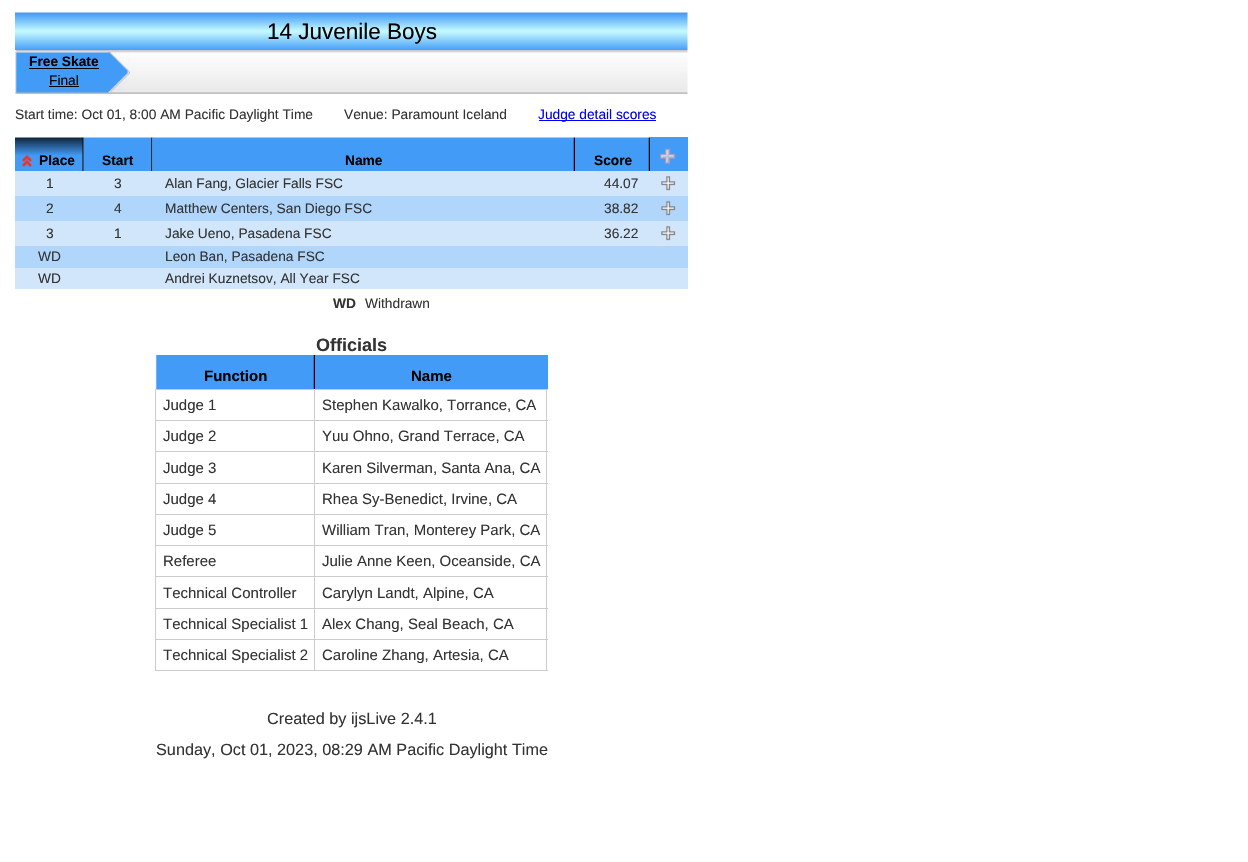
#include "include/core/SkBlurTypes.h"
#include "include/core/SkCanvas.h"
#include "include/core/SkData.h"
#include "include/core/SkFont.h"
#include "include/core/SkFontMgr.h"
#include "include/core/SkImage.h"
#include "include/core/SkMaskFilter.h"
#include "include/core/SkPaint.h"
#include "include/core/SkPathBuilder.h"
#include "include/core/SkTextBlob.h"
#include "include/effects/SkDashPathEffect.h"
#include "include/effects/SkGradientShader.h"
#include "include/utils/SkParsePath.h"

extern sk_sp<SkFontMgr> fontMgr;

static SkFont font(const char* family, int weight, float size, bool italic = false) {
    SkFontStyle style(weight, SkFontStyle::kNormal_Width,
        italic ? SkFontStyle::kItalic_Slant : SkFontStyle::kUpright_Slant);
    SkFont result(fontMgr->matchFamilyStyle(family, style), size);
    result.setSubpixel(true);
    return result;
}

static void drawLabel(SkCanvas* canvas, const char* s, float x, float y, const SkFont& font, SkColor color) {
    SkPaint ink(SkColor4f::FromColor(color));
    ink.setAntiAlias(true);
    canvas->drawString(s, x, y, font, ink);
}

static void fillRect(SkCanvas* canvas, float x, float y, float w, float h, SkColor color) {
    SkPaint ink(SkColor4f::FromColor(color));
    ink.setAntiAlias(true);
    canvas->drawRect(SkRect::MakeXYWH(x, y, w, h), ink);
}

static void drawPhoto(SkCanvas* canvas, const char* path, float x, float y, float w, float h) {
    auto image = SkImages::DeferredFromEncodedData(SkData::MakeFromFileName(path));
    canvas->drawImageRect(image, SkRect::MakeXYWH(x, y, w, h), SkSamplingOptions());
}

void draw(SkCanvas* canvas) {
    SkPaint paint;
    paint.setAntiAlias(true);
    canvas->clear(0xFFFFFFFF);
    drawPhoto(canvas, "assets/img1.png", 15, 12, 673, 38);
    SkFont font1 = font("Liberation Sans", 400, 22.5f);
    drawLabel(canvas, "14 Juvenile Boys", 267, 39, font1, 0xFF000000);
    drawPhoto(canvas, "assets/img2.png", 15, 50, 673, 44);
    drawPhoto(canvas, "assets/img3.png", 16, 50, 114, 44);
    SkFont font2 = font("Liberation Sans", 700, 13.75f);
    drawLabel(canvas, "Free Skate", 29, 66, font2, 0xFF000000);
    fillRect(canvas, 29, 68, 70, 1, 0xFF000000);
    SkFont font3 = font("Liberation Sans", 400, 13.75f);
    drawLabel(canvas, "Final", 49, 85, font3, 0xFF000000);
    fillRect(canvas, 49, 86, 30, 1, 0xFF000000);
    drawLabel(canvas, "Start time: Oct 01, 8:00 AM Pacific Daylight Time", 15, 119, font3, 0xFF333333);
    drawLabel(canvas, "Venue: Paramount Iceland", 344, 119, font3, 0xFF333333);
    fillRect(canvas, 539, 120, 117, 1, 0xFF0000EE);
    drawLabel(canvas, "Judge detail scores", 538, 119, font3, 0xFF0000EE);
    drawPhoto(canvas, "assets/img4.png", 15, 137, 69, 34);
    drawPhoto(canvas, "assets/img5.png", 22, 154, 10, 13);
    drawLabel(canvas, "Place", 39, 165, font2, 0xFF000000);
    drawPhoto(canvas, "assets/img6.png", 83, 137, 70, 34);
    drawLabel(canvas, "Start", 102, 165, font2, 0xFF000000);
    drawPhoto(canvas, "assets/img7.png", 152, 137, 423, 34);
    drawLabel(canvas, "Name", 345, 165, font2, 0xFF000000);
    drawPhoto(canvas, "assets/img8.png", 575, 137, 75, 34);
    drawLabel(canvas, "Score", 594, 165, font2, 0xFF000000);
    fillRect(canvas, 650, 137, 38, 34, 0xFF439BF8);
    drawPhoto(canvas, "assets/img9.png", 659, 148, 17, 16);
    fillRect(canvas, 15, 171, 673, 25, 0xFFD1E6FB);
    drawLabel(canvas, "1", 46, 188, font3, 0xFF333333);
    drawLabel(canvas, "3", 114, 188, font3, 0xFF333333);
    drawLabel(canvas, "Alan Fang, Glacier Falls FSC", 165, 188, font3, 0xFF333333);
    drawLabel(canvas, "44.07", 604, 188, font3, 0xFF333333);
    drawPhoto(canvas, "assets/img10.png", 661, 176, 15, 15);
    fillRect(canvas, 15, 196, 673, 25, 0xFFB1D6FC);
    drawLabel(canvas, "2", 46, 213, font3, 0xFF333333);
    drawLabel(canvas, "4", 114, 213, font3, 0xFF333333);
    drawLabel(canvas, "Matthew Centers, San Diego FSC", 165, 213, font3, 0xFF333333);
    drawLabel(canvas, "38.82", 604, 213, font3, 0xFF333333);
    drawPhoto(canvas, "assets/img11.png", 661, 201, 15, 15);
    fillRect(canvas, 15, 221, 673, 25, 0xFFD1E6FB);
    drawLabel(canvas, "3", 46, 238, font3, 0xFF333333);
    drawLabel(canvas, "1", 114, 238, font3, 0xFF333333);
    drawLabel(canvas, "Jake Ueno, Pasadena FSC", 165, 238, font3, 0xFF333333);
    drawLabel(canvas, "36.22", 604, 238, font3, 0xFF333333);
    drawPhoto(canvas, "assets/img10.png", 661, 226, 15, 15);
    fillRect(canvas, 15, 246, 673, 22, 0xFFB1D6FC);
    drawLabel(canvas, "WD", 38, 261, font3, 0xFF333333);
    drawLabel(canvas, "Leon Ban, Pasadena FSC", 165, 261, font3, 0xFF333333);
    fillRect(canvas, 15, 268, 673, 21, 0xFFD1E6FB);
    drawLabel(canvas, "WD", 38, 283, font3, 0xFF333333);
    drawLabel(canvas, "Andrei Kuznetsov, All Year FSC", 165, 283, font3, 0xFF333333);
    drawLabel(canvas, "WD", 333, 308, font2, 0xFF333333);
    drawLabel(canvas, "Withdrawn", 365, 308, font3, 0xFF333333);
    SkFont font4 = font("Liberation Sans", 700, 18);
    drawLabel(canvas, "Officials", 316, 351, font4, 0xFF333333);
    drawPhoto(canvas, "assets/img12.png", 156, 355, 159, 34);
    SkFont font5 = font("Liberation Sans", 700, 15);
    drawLabel(canvas, "Function", 204, 381, font5, 0xFF000000);
    fillRect(canvas, 315, 355, 233, 34, 0xFF439BF8);
    drawLabel(canvas, "Name", 411, 381, font5, 0xFF000000);
    fillRect(canvas, 314, 389, 234, 1, 0xFFCCCCCC);
    fillRect(canvas, 314, 420, 234, 1, 0xFFCCCCCC);
    fillRect(canvas, 314, 451, 234, 1, 0xFFCCCCCC);
    fillRect(canvas, 314, 483, 234, 1, 0xFFCCCCCC);
    fillRect(canvas, 314, 514, 234, 1, 0xFFCCCCCC);
    fillRect(canvas, 314, 545, 234, 1, 0xFFCCCCCC);
    fillRect(canvas, 314, 576, 234, 1, 0xFFCCCCCC);
    fillRect(canvas, 314, 608, 234, 1, 0xFFCCCCCC);
    fillRect(canvas, 314, 639, 234, 1, 0xFFCCCCCC);
    fillRect(canvas, 546, 639, 1, 32, 0xFFCCCCCC);
    fillRect(canvas, 314, 670, 234, 1, 0xFFCCCCCC);
    fillRect(canvas, 314, 639, 1, 32, 0xFFCCCCCC);
    fillRect(canvas, 155, 639, 160, 1, 0xFFCCCCCC);
    fillRect(canvas, 314, 608, 1, 32, 0xFFCCCCCC);
    fillRect(canvas, 155, 608, 160, 1, 0xFFCCCCCC);
    fillRect(canvas, 314, 576, 1, 33, 0xFFCCCCCC);
    fillRect(canvas, 155, 576, 160, 1, 0xFFCCCCCC);
    fillRect(canvas, 314, 545, 1, 33, 0xFFCCCCCC);
    fillRect(canvas, 155, 545, 160, 1, 0xFFCCCCCC);
    fillRect(canvas, 314, 514, 1, 32, 0xFFCCCCCC);
    fillRect(canvas, 155, 514, 160, 1, 0xFFCCCCCC);
    fillRect(canvas, 314, 483, 1, 32, 0xFFCCCCCC);
    fillRect(canvas, 155, 483, 160, 1, 0xFFCCCCCC);
    fillRect(canvas, 314, 451, 1, 33, 0xFFCCCCCC);
    fillRect(canvas, 155, 451, 160, 1, 0xFFCCCCCC);
    fillRect(canvas, 314, 420, 1, 33, 0xFFCCCCCC);
    fillRect(canvas, 155, 420, 160, 1, 0xFFCCCCCC);
    fillRect(canvas, 314, 389, 1, 32, 0xFFCCCCCC);
    fillRect(canvas, 155, 389, 160, 1, 0xFFCCCCCC);
    fillRect(canvas, 155, 670, 160, 1, 0xFFCCCCCC);
    fillRect(canvas, 155, 639, 1, 32, 0xFFCCCCCC);
    fillRect(canvas, 155, 608, 1, 32, 0xFFCCCCCC);
    fillRect(canvas, 155, 576, 1, 33, 0xFFCCCCCC);
    fillRect(canvas, 155, 545, 1, 33, 0xFFCCCCCC);
    fillRect(canvas, 155, 514, 1, 32, 0xFFCCCCCC);
    fillRect(canvas, 155, 483, 1, 32, 0xFFCCCCCC);
    fillRect(canvas, 155, 451, 1, 33, 0xFFCCCCCC);
    fillRect(canvas, 155, 420, 1, 33, 0xFFCCCCCC);
    fillRect(canvas, 155, 389, 1, 32, 0xFFCCCCCC);
    SkFont font6 = font("Liberation Sans", 400, 15);
    drawLabel(canvas, "Judge 1", 163, 410, font6, 0xFF333333);
    fillRect(canvas, 546, 608, 1, 32, 0xFFCCCCCC);
    fillRect(canvas, 546, 576, 1, 33, 0xFFCCCCCC);
    fillRect(canvas, 546, 545, 1, 33, 0xFFCCCCCC);
    fillRect(canvas, 546, 514, 1, 32, 0xFFCCCCCC);
    fillRect(canvas, 546, 483, 1, 32, 0xFFCCCCCC);
    fillRect(canvas, 546, 451, 1, 33, 0xFFCCCCCC);
    fillRect(canvas, 546, 420, 1, 33, 0xFFCCCCCC);
    fillRect(canvas, 546, 389, 1, 32, 0xFFCCCCCC);
    drawLabel(canvas, "Stephen Kawalko, Torrance, CA", 322, 410, font6, 0xFF333333);
    drawLabel(canvas, "Judge 2", 163, 441, font6, 0xFF333333);
    drawLabel(canvas, "Yuu Ohno, Grand Terrace, CA", 322, 441, font6, 0xFF333333);
    drawLabel(canvas, "Judge 3", 163, 473, font6, 0xFF333333);
    drawLabel(canvas, "Karen Silverman, Santa Ana, CA", 322, 473, font6, 0xFF333333);
    drawLabel(canvas, "Judge 4", 163, 504, font6, 0xFF333333);
    drawLabel(canvas, "Rhea Sy-Benedict, Irvine, CA", 322, 504, font6, 0xFF333333);
    drawLabel(canvas, "Judge 5", 163, 535, font6, 0xFF333333);
    drawLabel(canvas, "William Tran, Monterey Park, CA", 322, 535, font6, 0xFF333333);
    drawLabel(canvas, "Referee", 163, 566, font6, 0xFF333333);
    drawLabel(canvas, "Julie Anne Keen, Oceanside, CA", 322, 566, font6, 0xFF333333);
    drawLabel(canvas, "Technical Controller", 163, 598, font6, 0xFF333333);
    drawLabel(canvas, "Carylyn Landt, Alpine, CA", 322, 598, font6, 0xFF333333);
    drawLabel(canvas, "Technical Specialist 1", 163, 629, font6, 0xFF333333);
    drawLabel(canvas, "Alex Chang, Seal Beach, CA", 322, 629, font6, 0xFF333333);
    drawLabel(canvas, "Technical Specialist 2", 163, 660, font6, 0xFF333333);
    drawLabel(canvas, "Caroline Zhang, Artesia, CA", 322, 660, font6, 0xFF333333);
    SkFont font7 = font("Liberation Sans", 400, 16.25f);
    drawLabel(canvas, "Created by ijsLive 2.4.1", 267, 724, font7, 0xFF333333);
    drawLabel(canvas, "Sunday, Oct 01, 2023, 08:29 AM Pacific Daylight Time", 156, 755, font7, 0xFF333333);
}
